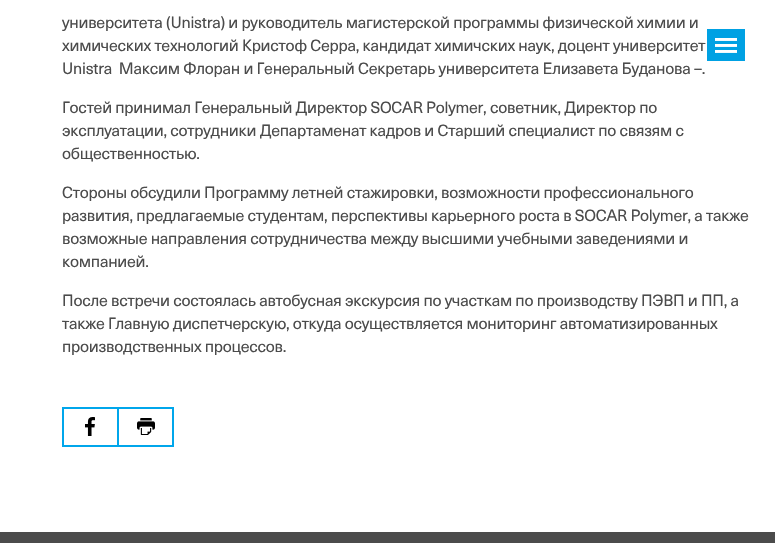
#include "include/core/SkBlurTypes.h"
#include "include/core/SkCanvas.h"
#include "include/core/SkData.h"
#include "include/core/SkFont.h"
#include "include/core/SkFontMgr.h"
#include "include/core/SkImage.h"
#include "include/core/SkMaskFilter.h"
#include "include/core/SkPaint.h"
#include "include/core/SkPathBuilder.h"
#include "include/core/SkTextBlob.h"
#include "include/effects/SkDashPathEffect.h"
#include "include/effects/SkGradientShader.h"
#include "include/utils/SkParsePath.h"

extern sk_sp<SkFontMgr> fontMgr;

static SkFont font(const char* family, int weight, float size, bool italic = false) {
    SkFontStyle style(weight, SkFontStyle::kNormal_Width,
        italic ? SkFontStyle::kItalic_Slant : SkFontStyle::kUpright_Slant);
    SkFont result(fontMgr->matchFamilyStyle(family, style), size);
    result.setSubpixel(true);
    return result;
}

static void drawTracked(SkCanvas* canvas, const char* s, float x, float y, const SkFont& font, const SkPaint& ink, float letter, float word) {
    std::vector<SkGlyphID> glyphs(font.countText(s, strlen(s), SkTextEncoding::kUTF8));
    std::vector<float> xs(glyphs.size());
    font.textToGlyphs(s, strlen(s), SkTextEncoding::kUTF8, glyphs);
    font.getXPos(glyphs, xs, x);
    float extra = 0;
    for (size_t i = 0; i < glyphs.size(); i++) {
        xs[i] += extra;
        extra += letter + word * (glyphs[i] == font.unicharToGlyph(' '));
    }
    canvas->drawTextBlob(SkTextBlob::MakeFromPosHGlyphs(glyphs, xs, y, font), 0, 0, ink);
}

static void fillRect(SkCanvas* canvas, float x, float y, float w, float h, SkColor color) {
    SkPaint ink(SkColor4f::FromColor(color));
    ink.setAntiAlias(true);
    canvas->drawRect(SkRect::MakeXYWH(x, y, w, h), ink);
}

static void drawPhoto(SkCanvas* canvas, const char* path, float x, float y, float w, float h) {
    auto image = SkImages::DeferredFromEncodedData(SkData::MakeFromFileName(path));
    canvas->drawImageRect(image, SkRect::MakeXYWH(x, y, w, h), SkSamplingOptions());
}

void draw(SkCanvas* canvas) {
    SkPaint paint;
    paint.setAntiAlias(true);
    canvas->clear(0xFFFFFFFF);
    SkFont font1 = font("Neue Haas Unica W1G", 400, 16);
    paint.setColor(0xFF4B4B4B);
    drawTracked(canvas, "университета (Unistra) и руководитель магистерской программы физической химии и", 62, 28, font1, paint, -0.25f, 0);
    drawTracked(canvas, "химических технологий Кристоф Серра, кандидат химичских наук, доцент университет", 62, 51, font1, paint, -0.25f, 0);
    drawTracked(canvas, "Unistra  Максим Флоран и Генеральный Секретарь университета Елизавета Буданова –.", 62, 74, font1, paint, -0.25f, 0);
    drawTracked(canvas, "Гостей принимал Генеральный Директор SOCAR Polymer, советник, Директор по", 62, 113, font1, paint, -0.25f, 0);
    drawTracked(canvas, "эксплуатации, сотрудники Департаменат кадров и Старший специалист по связям с", 62, 136, font1, paint, -0.25f, 0);
    drawTracked(canvas, "общественностью.", 62, 159, font1, paint, -0.25f, 0);
    drawTracked(canvas, "Стороны обсудили Программу летней стажировки, возможности профессионального", 62, 198, font1, paint, -0.25f, 0);
    drawTracked(canvas, "развития, предлагаемые студентам, перспективы карьерного роста в SOCAR Polymer, а также", 62, 221, font1, paint, -0.25f, 0);
    drawTracked(canvas, "возможные направления сотрудничества между высшими учебными заведениями и", 62, 244, font1, paint, -0.25f, 0);
    drawTracked(canvas, "компанией.", 62, 267, font1, paint, -0.25f, 0);
    drawTracked(canvas, "После встречи состоялась автобусная экскурсия по участкам по производству ПЭВП и ПП, а", 62, 306, font1, paint, -0.25f, 0);
    drawTracked(canvas, "также Главную диспетчерскую, откуда осуществляется мониторинг автоматизированных", 62, 329, font1, paint, -0.25f, 0);
    drawTracked(canvas, "производственных процессов.", 62, 352, font1, paint, -0.25f, 0);
    fillRect(canvas, 62, 407, 112, 2, 0xFF00A6EB);
    fillRect(canvas, 172, 407, 2, 40, 0xFF00A6EB);
    fillRect(canvas, 62, 445, 112, 2, 0xFF00A6EB);
    drawPhoto(canvas, "assets/img1.png", 85, 417, 10, 19);
    fillRect(canvas, 62, 409, 2, 36, 0xFF00A6EB);
    drawPhoto(canvas, "assets/img2.png", 137, 418, 18, 17);
    fillRect(canvas, 117, 409, 2, 36, 0xFF00A6EB);
    drawPhoto(canvas, "assets/img3.png", 707, 29, 38, 32);
    fillRect(canvas, 0, 532, 775, 11, 0xFF4B4B4B);
}
